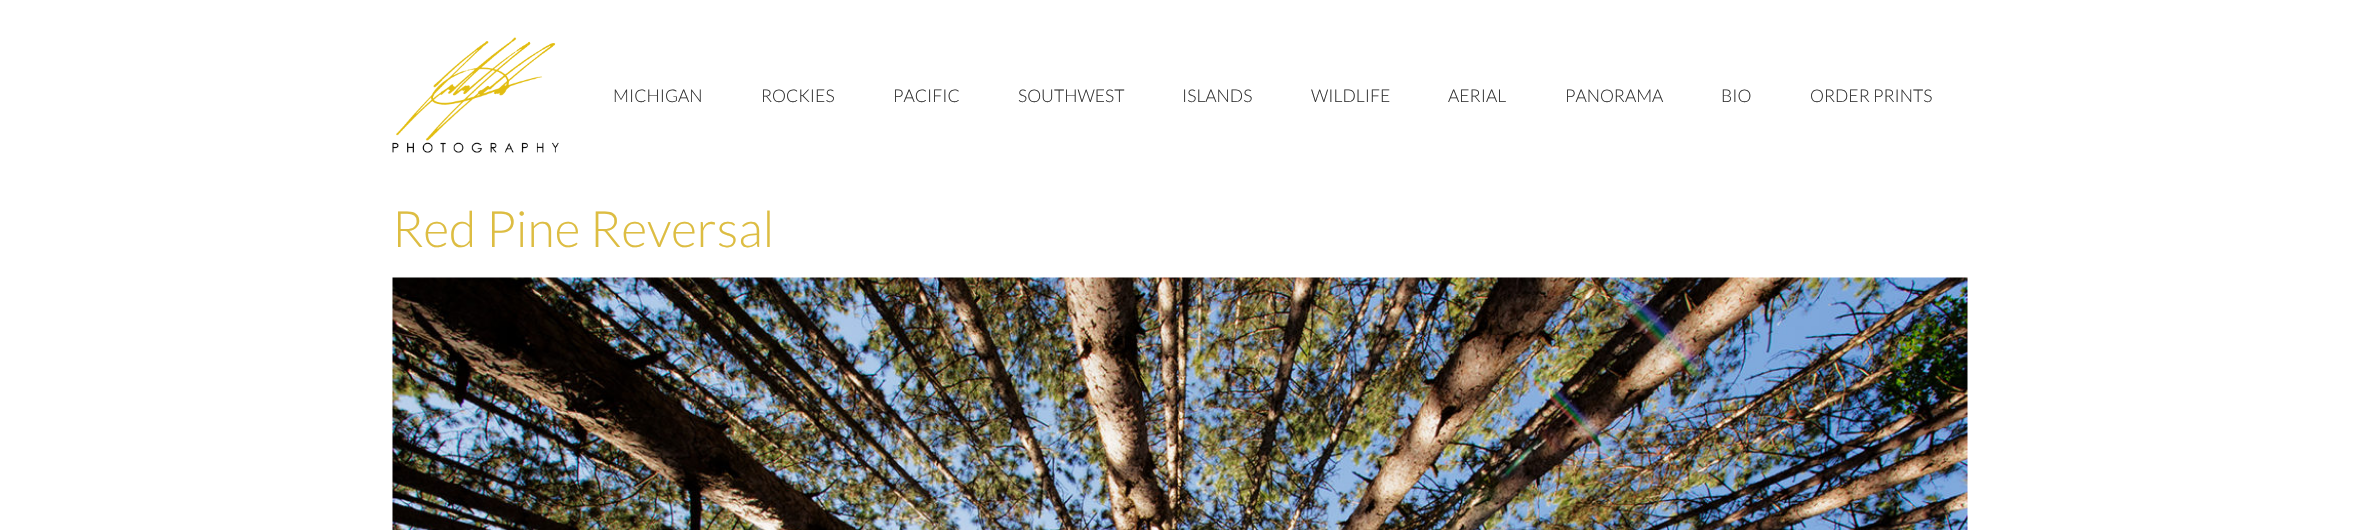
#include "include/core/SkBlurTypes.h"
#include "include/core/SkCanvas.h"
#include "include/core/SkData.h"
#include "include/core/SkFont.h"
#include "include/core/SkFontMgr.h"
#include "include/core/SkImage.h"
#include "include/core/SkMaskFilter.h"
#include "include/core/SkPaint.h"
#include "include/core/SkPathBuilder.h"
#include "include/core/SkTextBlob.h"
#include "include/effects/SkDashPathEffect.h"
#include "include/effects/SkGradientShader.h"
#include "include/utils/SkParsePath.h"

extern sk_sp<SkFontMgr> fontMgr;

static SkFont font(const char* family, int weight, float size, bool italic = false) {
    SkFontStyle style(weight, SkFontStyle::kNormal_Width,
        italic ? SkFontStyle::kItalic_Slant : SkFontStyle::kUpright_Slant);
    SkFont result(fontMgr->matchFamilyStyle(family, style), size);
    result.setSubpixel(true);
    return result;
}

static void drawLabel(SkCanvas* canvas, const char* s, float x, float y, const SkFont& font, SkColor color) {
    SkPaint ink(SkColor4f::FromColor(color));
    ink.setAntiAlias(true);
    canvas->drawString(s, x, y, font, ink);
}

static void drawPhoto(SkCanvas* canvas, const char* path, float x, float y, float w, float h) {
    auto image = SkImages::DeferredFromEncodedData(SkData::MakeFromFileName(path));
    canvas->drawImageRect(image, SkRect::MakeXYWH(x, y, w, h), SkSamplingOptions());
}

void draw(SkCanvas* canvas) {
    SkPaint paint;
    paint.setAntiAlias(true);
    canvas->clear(0xFFFFFFFF);
    drawPhoto(canvas, "assets/img1.png", 392, 37, 167, 116);
    SkFont font1 = font("Lato", 300, 17.5f);
    drawLabel(canvas, "MICHIGAN", 613, 102, font1, 0xFF333333);
    drawLabel(canvas, "ROCKIES", 761, 102, font1, 0xFF333333);
    drawLabel(canvas, "PACIFIC", 893, 102, font1, 0xFF333333);
    drawLabel(canvas, "SOUTHWEST", 1018, 102, font1, 0xFF333333);
    drawLabel(canvas, "ISLANDS", 1182, 102, font1, 0xFF333333);
    drawLabel(canvas, "WILDLIFE", 1311, 102, font1, 0xFF333333);
    drawLabel(canvas, "AERIAL", 1448, 102, font1, 0xFF333333);
    drawLabel(canvas, "PANORAMA", 1565, 102, font1, 0xFF333333);
    drawLabel(canvas, "BIO", 1721, 102, font1, 0xFF333333);
    drawLabel(canvas, "ORDER PRINTS", 1810, 102, font1, 0xFF333333);
    SkFont font2 = font("Lato", 300, 50);
    drawLabel(canvas, "Red Pine Reversal", 392, 247, font2, 0xFFDDBD42);
    drawPhoto(canvas, "assets/img2.png", 392, 277, 1576, 253);
}
